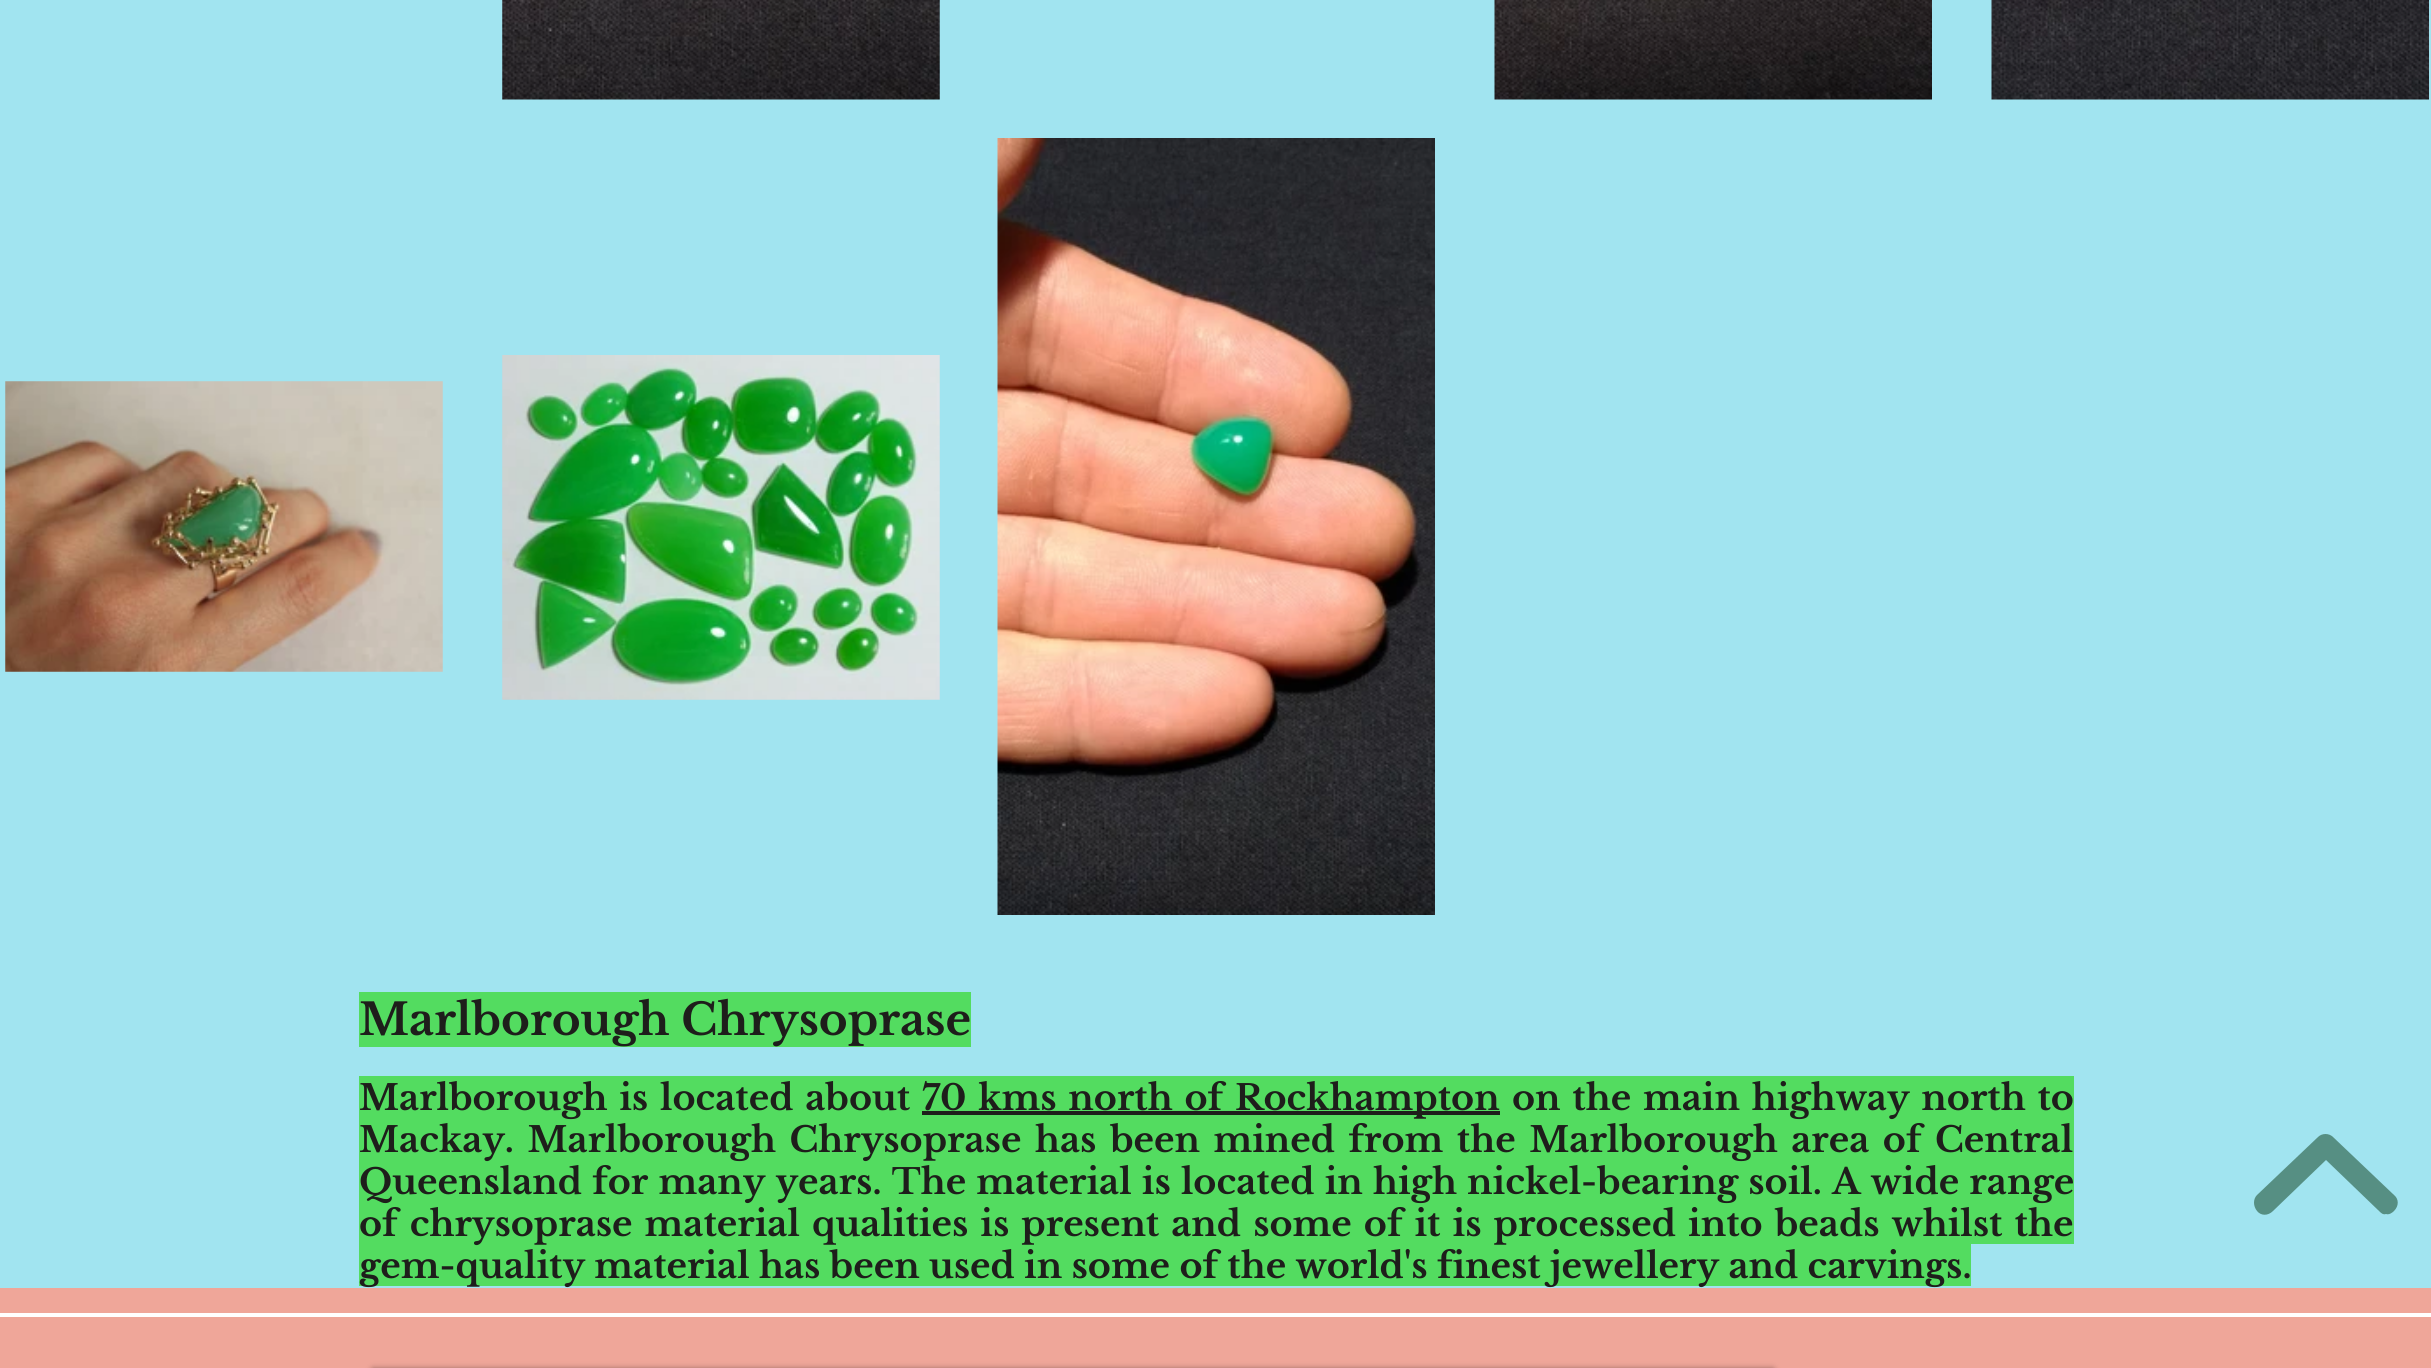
import math
import cairocffi as cairo

surface = cairo.ImageSurface(cairo.FORMAT_RGB24, 2431, 1368)
cr = cairo.Context(surface)
options = cairo.FontOptions()
options.set_hint_metrics(cairo.HINT_METRICS_OFF)
options.set_hint_style(cairo.HINT_STYLE_NONE)
cr.set_font_options(options)
cr.set_miter_limit(4)


def use_color(code):
    cr.set_source_rgb(*(v / 255 for v in bytes.fromhex(code[-6:])))


def spaced_text(x, y, s, letter, word):
    cr.move_to(x, y)
    for ch in s:
        cr.show_text(ch)
        cr.rel_move_to(letter + word * (ch == ' '), 0)


def round_rect(x, y, w, h, r):
    cr.new_sub_path()
    for i, (u, v) in enumerate([(x + w - r, y + h - r), (x + r, y + h - r), (x + r, y + r), (x + w - r, y + r)]):
        cr.arc(u, v, r, i * math.pi / 2, (i + 1) * math.pi / 2)
    cr.close_path()


def shadow(x, y, w, h, r, blur, alpha):
    cr.push_group_with_content(cairo.CONTENT_ALPHA)
    cr.set_operator(cairo.OPERATOR_SOURCE)
    for i in range(15, -16, -2):
        e = blur * i / 6
        if min(w, h) + 2 * e > 0:
            cr.set_source_rgba(0, 0, 0, alpha * math.erfc((i - 1) / 8.5) / 2)
            round_rect(x - e, y - e, w + 2 * e, h + 2 * e, max(0, min(r + e + blur * .6, min(w, h) / 2 + e)))
            cr.fill()
    cr.mask(cr.pop_group())


def picture(path, x, y, w, h):
    cr.save()
    cr.set_source_surface(cairo.ImageSurface.create_from_png(path), x, y)
    cr.rectangle(x, y, w, h)
    cr.fill()
    cr.restore()


use_color("#a1e4f0")
cr.paint()
picture("img1.png", 502, 0, 438, 100)
picture("img2.png", 1494, 0, 438, 100)
picture("img3.png", 1991, 0, 438, 100)
picture("img4.png", 5, 381, 438, 291)
picture("img5.png", 502, 355, 438, 345)
picture("img6.png", 997, 138, 438, 777)
use_color("#53dc60")
cr.rectangle(359, 992, 612, 55)
cr.fill()
cr.select_font_face("Libre Baskerville", cairo.FONT_SLANT_NORMAL, cairo.FONT_WEIGHT_BOLD)
cr.set_font_size(43.75)
use_color("#1e1e1b")
cr.move_to(359, 1035)
cr.show_text("Marlborough Chrysoprase")
use_color("#53dc60")
cr.rectangle(359, 1076, 1715, 168)
cr.fill()
cr.set_font_size(35)
use_color("#1e1e1b")
spaced_text(359, 1110, "Marlborough is located about", 0, 2.5)
cr.rectangle(922, 1111, 578, 4)
cr.fill()
spaced_text(922, 1110, "70 kms north of Rockhampton", 0, 2.5)
spaced_text(1512, 1110, "on the main highway north to", 0, 2.5)
spaced_text(359, 1152, "Mackay. Marlborough Chrysoprase has been mined from the Marlborough area of Central", 0, 4.25)
spaced_text(359, 1194, "Queensland for many years. The material is located in high nickel-bearing soil. A wide range", 0, 0.9)
use_color("#53dc60")
cr.rectangle(359, 1244, 1612, 42)
cr.fill()
use_color("#1e1e1b")
spaced_text(359, 1236, "of chrysoprase material qualities is present and some of it is processed into beads whilst the", 0, 2.75)
cr.move_to(359, 1278)
cr.show_text("gem-quality material has been used in some of the world's finest jewellery and carvings.")
use_color("#568f83")
cr.new_path()
cr.move_to(2386, 1214)
cr.curve_to(2383, 1215, 2381, 1213, 2379, 1211)
cr.line_to(2326, 1160)
cr.line_to(2273, 1211)
cr.curve_to(2268, 1216, 2261, 1216, 2257, 1211)
cr.curve_to(2253, 1206, 2253, 1199, 2257, 1195)
cr.line_to(2318, 1137)
cr.curve_to(2322, 1133, 2329, 1133, 2333, 1137)
cr.line_to(2394, 1195)
cr.curve_to(2399, 1199, 2399, 1206, 2394, 1211)
cr.curve_to(2392, 1213, 2389, 1215, 2386, 1214)
cr.close_path()
cr.fill()
use_color("#efa699")
cr.rectangle(0, 1288, 2431, 80)
cr.fill()
use_color("#ffffff")
cr.rectangle(0, 1313, 2431, 4)
cr.fill()
use_color("#000000")
shadow(373, 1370, 1400, 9, 0, 3.5, 0.6)
surface.write_to_png("result.png")
